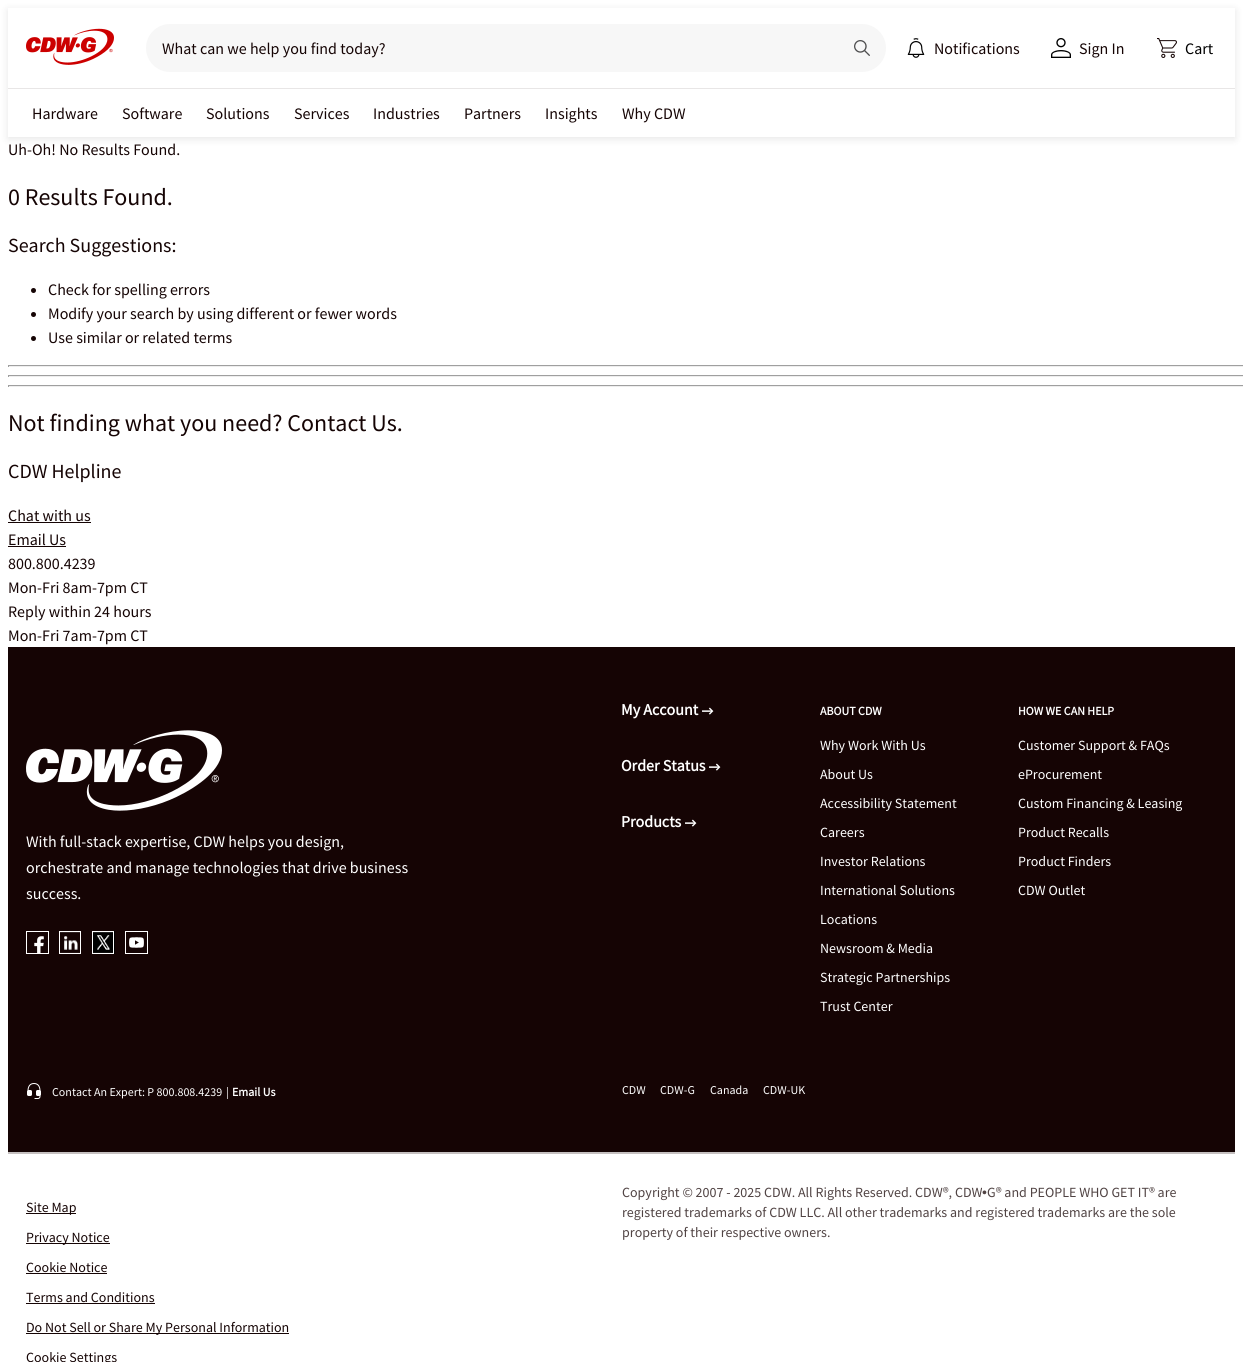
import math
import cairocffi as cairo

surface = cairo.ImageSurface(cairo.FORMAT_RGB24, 1243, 1362)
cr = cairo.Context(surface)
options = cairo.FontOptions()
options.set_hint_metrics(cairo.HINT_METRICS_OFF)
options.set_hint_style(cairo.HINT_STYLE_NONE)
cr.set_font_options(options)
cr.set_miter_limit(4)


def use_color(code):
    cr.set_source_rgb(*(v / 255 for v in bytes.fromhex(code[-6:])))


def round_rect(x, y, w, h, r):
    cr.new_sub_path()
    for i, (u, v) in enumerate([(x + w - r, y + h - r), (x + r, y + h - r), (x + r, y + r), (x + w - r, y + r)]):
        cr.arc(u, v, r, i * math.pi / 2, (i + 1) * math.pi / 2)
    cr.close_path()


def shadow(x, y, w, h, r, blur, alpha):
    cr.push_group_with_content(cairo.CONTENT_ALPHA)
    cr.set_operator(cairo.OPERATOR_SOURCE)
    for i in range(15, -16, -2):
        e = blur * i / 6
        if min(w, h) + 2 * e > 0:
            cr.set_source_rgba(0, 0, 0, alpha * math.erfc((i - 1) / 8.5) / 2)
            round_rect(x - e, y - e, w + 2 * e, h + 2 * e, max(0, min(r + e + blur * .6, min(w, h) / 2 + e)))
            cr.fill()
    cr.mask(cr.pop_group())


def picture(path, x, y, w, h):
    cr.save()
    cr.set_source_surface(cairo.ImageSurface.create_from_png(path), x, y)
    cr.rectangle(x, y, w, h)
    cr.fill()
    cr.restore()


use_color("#ffffff")
cr.paint()
cr.save()
cr.set_fill_rule(cairo.FILL_RULE_EVEN_ODD)
cr.new_path()
cr.move_to(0, 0)
cr.line_to(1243, 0)
cr.line_to(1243, 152)
cr.line_to(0, 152)
cr.close_path()
cr.move_to(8, 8)
cr.line_to(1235, 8)
cr.line_to(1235, 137)
cr.line_to(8, 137)
cr.close_path()
cr.clip()
use_color("#000000")
shadow(8, 10, 1227, 129, 0, 4, 0.1)
cr.restore()
picture("img1.png", 26, 28, 88, 37)
use_color("#f7f7f7")
round_rect(146, 24, 740, 48, 24)
cr.fill()
cr.select_font_face("Source Sans Pro")
cr.set_font_size(16)
use_color("#150404")
cr.move_to(162, 54)
cr.show_text("What can we help you find today?")
picture("img2.png", 854, 40, 16, 16)
picture("img3.png", 907, 38, 18, 20)
cr.move_to(934, 54)
cr.show_text("Notifications")
picture("img4.png", 1051, 38, 20, 20)
cr.move_to(1079, 54)
cr.show_text("Sign In")
picture("img5.png", 1157, 38, 20, 20)
use_color("#000000")
cr.move_to(1185, 54)
cr.show_text("Cart")
use_color("#e8e6e6")
cr.rectangle(8, 88, 1227, 1)
cr.fill()
use_color("#150404")
cr.move_to(32, 119)
cr.show_text("Hardware")
cr.move_to(122, 119)
cr.show_text("Software")
cr.move_to(206, 119)
cr.show_text("Solutions")
cr.move_to(294, 119)
cr.show_text("Services")
cr.move_to(373, 119)
cr.show_text("Industries")
cr.move_to(464, 119)
cr.show_text("Partners")
cr.move_to(545, 119)
cr.show_text("Insights")
cr.move_to(622, 119)
cr.show_text("Why CDW")
cr.move_to(8, 155)
cr.show_text("Uh-Oh! No Results Found.")
cr.set_font_size(24)
cr.move_to(8, 205)
cr.show_text("0 Results Found.")
cr.set_font_size(20)
cr.move_to(8, 252)
cr.show_text("Search Suggestions:")
cr.new_path()
cr.arc(33.5, 290.5, 2.5, 0, 2 * math.pi)
cr.fill()
cr.set_font_size(16)
cr.move_to(48, 295)
cr.show_text("Check for spelling errors")
cr.new_path()
cr.arc(33.5, 314.5, 2.5, 0, 2 * math.pi)
cr.fill()
cr.move_to(48, 319)
cr.show_text("Modify your search by using different or fewer words")
cr.new_path()
cr.arc(33.5, 338.5, 2.5, 0, 2 * math.pi)
cr.fill()
cr.move_to(48, 343)
cr.show_text("Use similar or related terms")
use_color("#9f9f9f")
cr.rectangle(8, 365, 1235, 1)
cr.fill()
use_color("#eeeeee")
cr.rectangle(8, 366, 1235, 1)
cr.fill()
use_color("#9f9f9f")
cr.rectangle(8, 365, 1, 2)
cr.fill()
cr.rectangle(8, 375, 1235, 1)
cr.fill()
use_color("#eeeeee")
cr.rectangle(8, 376, 1235, 1)
cr.fill()
use_color("#9f9f9f")
cr.rectangle(8, 375, 1, 2)
cr.fill()
cr.rectangle(8, 385, 1235, 1)
cr.fill()
use_color("#eeeeee")
cr.rectangle(8, 386, 1235, 1)
cr.fill()
use_color("#9f9f9f")
cr.rectangle(8, 385, 1, 2)
cr.fill()
cr.set_font_size(24)
use_color("#150404")
cr.move_to(8, 431)
cr.show_text("Not finding what you need? Contact Us.")
cr.set_font_size(20)
cr.move_to(8, 478)
cr.show_text("CDW Helpline")
cr.set_font_size(16)
cr.move_to(8, 521)
cr.show_text("Chat with us")
cr.rectangle(8, 522, 83, 1)
cr.fill()
cr.move_to(8, 545)
cr.show_text("Email Us")
cr.rectangle(8, 546, 58, 1)
cr.fill()
cr.move_to(8, 569)
cr.show_text("800.800.4239")
cr.move_to(8, 593)
cr.show_text("Mon-Fri 8am-7pm CT")
cr.move_to(8, 617)
cr.show_text("Reply within 24 hours")
cr.move_to(8, 641)
cr.show_text("Mon-Fri 7am-7pm CT")
cr.rectangle(8, 647, 1227, 505)
cr.fill()
picture("img6.png", 26, 730, 196, 81)
use_color("#ffffff")
cr.move_to(26, 847)
cr.show_text("With full-stack expertise, CDW helps you design,")
cr.move_to(26, 873)
cr.show_text("orchestrate and manage technologies that drive business")
cr.move_to(26, 899)
cr.show_text("success.")
picture("img7.png", 26, 931, 23, 23)
picture("img8.png", 59, 931, 22, 23)
picture("img9.png", 92, 931, 23, 23)
picture("img10.png", 125, 931, 23, 23)
cr.select_font_face("Source Sans Pro", cairo.FONT_SLANT_NORMAL, cairo.FONT_WEIGHT_BOLD)
cr.move_to(621, 715)
cr.show_text("My Account")
picture("img11.png", 702, 707, 12, 8)
cr.move_to(621, 771)
cr.show_text("Order Status")
picture("img11.png", 709, 763, 12, 8)
cr.move_to(621, 827)
cr.show_text("Products")
picture("img11.png", 685, 819, 12, 8)
cr.set_font_size(12)
cr.move_to(820, 715)
cr.show_text("ABOUT CDW")
cr.select_font_face("Source Sans Pro")
cr.set_font_size(14)
cr.move_to(820, 750)
cr.show_text("Why Work With Us")
cr.move_to(820, 779)
cr.show_text("About Us")
cr.move_to(820, 808)
cr.show_text("Accessibility Statement")
cr.move_to(820, 837)
cr.show_text("Careers")
cr.move_to(820, 866)
cr.show_text("Investor Relations")
cr.move_to(820, 895)
cr.show_text("International Solutions")
cr.move_to(820, 924)
cr.show_text("Locations")
cr.move_to(820, 953)
cr.show_text("Newsroom & Media")
cr.move_to(820, 982)
cr.show_text("Strategic Partnerships")
cr.move_to(820, 1011)
cr.show_text("Trust Center")
cr.select_font_face("Source Sans Pro", cairo.FONT_SLANT_NORMAL, cairo.FONT_WEIGHT_BOLD)
cr.set_font_size(12)
cr.move_to(1018, 715)
cr.show_text("HOW WE CAN HELP")
cr.select_font_face("Source Sans Pro")
cr.set_font_size(14)
cr.move_to(1018, 750)
cr.show_text("Customer Support & FAQs")
cr.move_to(1018, 779)
cr.show_text("eProcurement")
cr.move_to(1018, 808)
cr.show_text("Custom Financing & Leasing")
cr.move_to(1018, 837)
cr.show_text("Product Recalls")
cr.move_to(1018, 866)
cr.show_text("Product Finders")
cr.move_to(1018, 895)
cr.show_text("CDW Outlet")
picture("img12.png", 27, 1083, 14, 16)
cr.set_font_size(12)
cr.move_to(52, 1096)
cr.show_text("Contact An Expert: P 800.808.4239")
cr.move_to(226, 1096)
cr.show_text("|")
cr.select_font_face("Source Sans Pro", cairo.FONT_SLANT_NORMAL, cairo.FONT_WEIGHT_BOLD)
cr.move_to(232, 1096)
cr.show_text("Email Us")
cr.select_font_face("Source Sans Pro")
cr.move_to(622, 1094)
cr.show_text("CDW")
cr.move_to(660, 1094)
cr.show_text("CDW-G")
cr.move_to(710, 1094)
cr.show_text("Canada")
cr.move_to(763, 1094)
cr.show_text("CDW-UK")
use_color("#c5c0c0")
cr.rectangle(8, 1152, 1227, 2)
cr.fill()
use_color("#150404")
cr.rectangle(26, 1213, 50, 1)
cr.fill()
cr.set_font_size(14)
cr.move_to(26, 1212)
cr.show_text("Site Map")
cr.rectangle(26, 1243, 84, 1)
cr.fill()
cr.move_to(26, 1242)
cr.show_text("Privacy Notice")
cr.move_to(26, 1272)
cr.show_text("Cookie Notice")
cr.rectangle(26, 1273, 81, 1)
cr.fill()
cr.move_to(26, 1302)
cr.show_text("Terms and Conditions")
cr.rectangle(26, 1303, 129, 1)
cr.fill()
use_color("#504343")
cr.move_to(622, 1197)
cr.show_text("Copyright © 2007 - 2025 CDW. All Rights Reserved. CDW®, CDW")
cr.select_font_face("Liberation Sans")
cr.move_to(982, 1197)
cr.show_text("•")
cr.select_font_face("Source Sans Pro")
cr.move_to(987, 1197)
cr.show_text("G® and PEOPLE WHO GET IT® are")
cr.move_to(622, 1217)
cr.show_text("registered trademarks of CDW LLC. All other trademarks and registered trademarks are the sole")
cr.move_to(622, 1237)
cr.show_text("property of their respective owners.")
use_color("#150404")
cr.rectangle(26, 1333, 263, 1)
cr.fill()
cr.move_to(26, 1332)
cr.show_text("Do Not Sell or Share My Personal Information")
cr.move_to(26, 1362)
cr.show_text("Cookie Settings")
surface.write_to_png("result.png")
